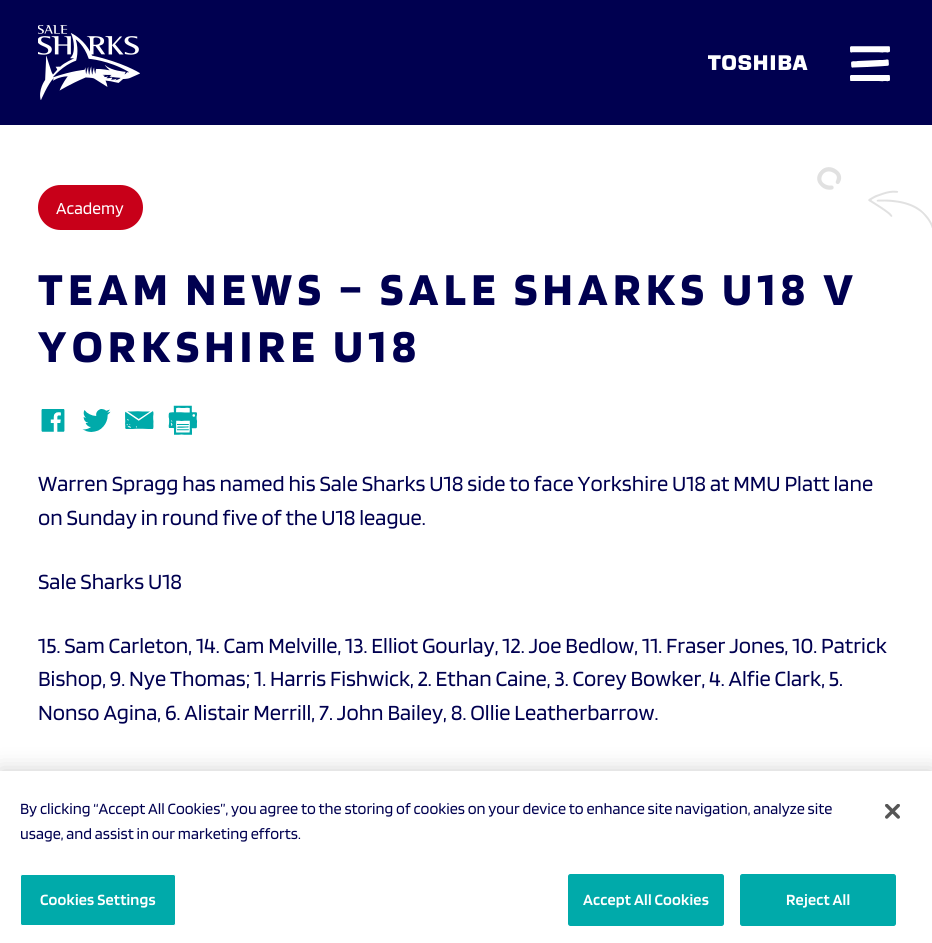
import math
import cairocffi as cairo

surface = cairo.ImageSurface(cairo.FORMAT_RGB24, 932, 943)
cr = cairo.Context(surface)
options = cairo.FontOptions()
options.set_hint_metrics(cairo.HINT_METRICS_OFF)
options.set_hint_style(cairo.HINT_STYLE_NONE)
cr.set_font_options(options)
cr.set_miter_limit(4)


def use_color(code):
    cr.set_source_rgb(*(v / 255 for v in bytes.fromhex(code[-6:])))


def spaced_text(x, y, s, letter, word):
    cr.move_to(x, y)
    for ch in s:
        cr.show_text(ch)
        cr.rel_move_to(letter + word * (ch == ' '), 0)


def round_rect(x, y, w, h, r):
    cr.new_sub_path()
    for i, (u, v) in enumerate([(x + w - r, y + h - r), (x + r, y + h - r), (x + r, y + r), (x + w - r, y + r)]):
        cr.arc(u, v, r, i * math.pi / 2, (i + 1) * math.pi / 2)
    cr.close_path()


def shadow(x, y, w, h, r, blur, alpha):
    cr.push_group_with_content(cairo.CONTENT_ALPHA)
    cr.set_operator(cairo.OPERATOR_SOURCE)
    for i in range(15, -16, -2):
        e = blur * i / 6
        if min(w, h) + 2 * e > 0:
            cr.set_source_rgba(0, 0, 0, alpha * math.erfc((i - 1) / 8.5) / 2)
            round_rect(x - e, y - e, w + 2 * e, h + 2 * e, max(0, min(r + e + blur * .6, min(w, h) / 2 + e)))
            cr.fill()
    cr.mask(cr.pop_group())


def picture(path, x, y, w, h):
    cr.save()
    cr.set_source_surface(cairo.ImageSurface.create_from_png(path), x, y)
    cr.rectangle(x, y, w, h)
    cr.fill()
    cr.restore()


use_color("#ffffff")
cr.paint()
use_color("#000050")
cr.rectangle(0, 0, 932, 125)
cr.fill()
picture("img1.png", 38, 25, 102, 75)
picture("img2.png", 708, 55, 100, 15)
picture("img3.png", 850, 46, 40, 36)
use_color("#c80019")
round_rect(38, 185, 105, 45, 22.5)
cr.fill()
cr.select_font_face("Blinker")
cr.set_font_size(17.5)
use_color("#ffffff")
cr.move_to(56, 214)
cr.show_text("Academy")
picture("img4.png", 817, 167, 115, 61)
cr.select_font_face("Blinker", cairo.FONT_SLANT_NORMAL, cairo.FONT_WEIGHT_BOLD)
cr.set_font_size(47.5)
use_color("#000050")
spaced_text(38, 305, "TEAM NEWS – SALE SHARKS U18 V", 5.7, 0)
spaced_text(38, 362, "YORKSHIRE U18", 5.7, 0)
picture("img5.png", 41, 409, 24, 23)
picture("img6.png", 82, 409, 29, 23)
picture("img7.png", 125, 411, 29, 18)
picture("img8.png", 168, 405, 30, 30)
cr.select_font_face("Blinker")
cr.set_font_size(22.5)
cr.move_to(38, 491)
cr.show_text("Warren Spragg has named his Sale Sharks U18 side to face Yorkshire U18 at MMU Platt lane")
cr.move_to(38, 525)
cr.show_text("on Sunday in round five of the U18 league.")
cr.move_to(38, 589)
cr.show_text("Sale Sharks U18")
cr.move_to(38, 653)
cr.show_text("15. Sam Carleton, 14. Cam Melville, 13. Elliot Gourlay, 12. Joe Bedlow, 11. Fraser Jones, 10. Patrick")
cr.move_to(38, 686)
cr.show_text("Bishop, 9. Nye Thomas; 1. Harris Fishwick, 2. Ethan Caine, 3. Corey Bowker, 4. Alfie Clark, 5.")
cr.move_to(38, 720)
cr.show_text("Nonso Agina, 6. Alistair Merrill, 7. John Bailey, 8. Ollie Leatherbarrow.")
use_color("#000000")
shadow(0, 771, 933, 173, 0, 11, 0.2)
use_color("#ffffff")
cr.rectangle(0, 771, 932, 172)
cr.fill()
cr.set_font_size(16.25)
use_color("#000050")
cr.move_to(20, 814)
cr.show_text("By clicking “Accept All Cookies”, you agree to the storing of cookies on your device to enhance site navigation, analyze site")
cr.move_to(20, 839)
cr.show_text("usage, and assist in our marketing efforts.")
use_color("#00aaaa")
round_rect(20.5, 874.5, 155, 51, 2)
cr.fill_preserve()
use_color("#ffffff")
cr.set_line_width(1)
cr.stroke()
cr.select_font_face("Blinker SemiBold")
spaced_text(40, 905, "Cookies Settings", 0.2, 0)
use_color("#00aaaa")
round_rect(568.5, 874.5, 155, 51, 2)
cr.fill_preserve()
cr.stroke()
use_color("#ffffff")
spaced_text(583, 905, "Accept All Cookies", 0.2, 0)
use_color("#00aaaa")
round_rect(740.5, 874.5, 155, 51, 2)
cr.fill_preserve()
cr.stroke()
use_color("#ffffff")
spaced_text(786, 905, "Reject All", 0.2, 0)
picture("img9.png", 885, 804, 15, 15)
surface.write_to_png("result.png")
